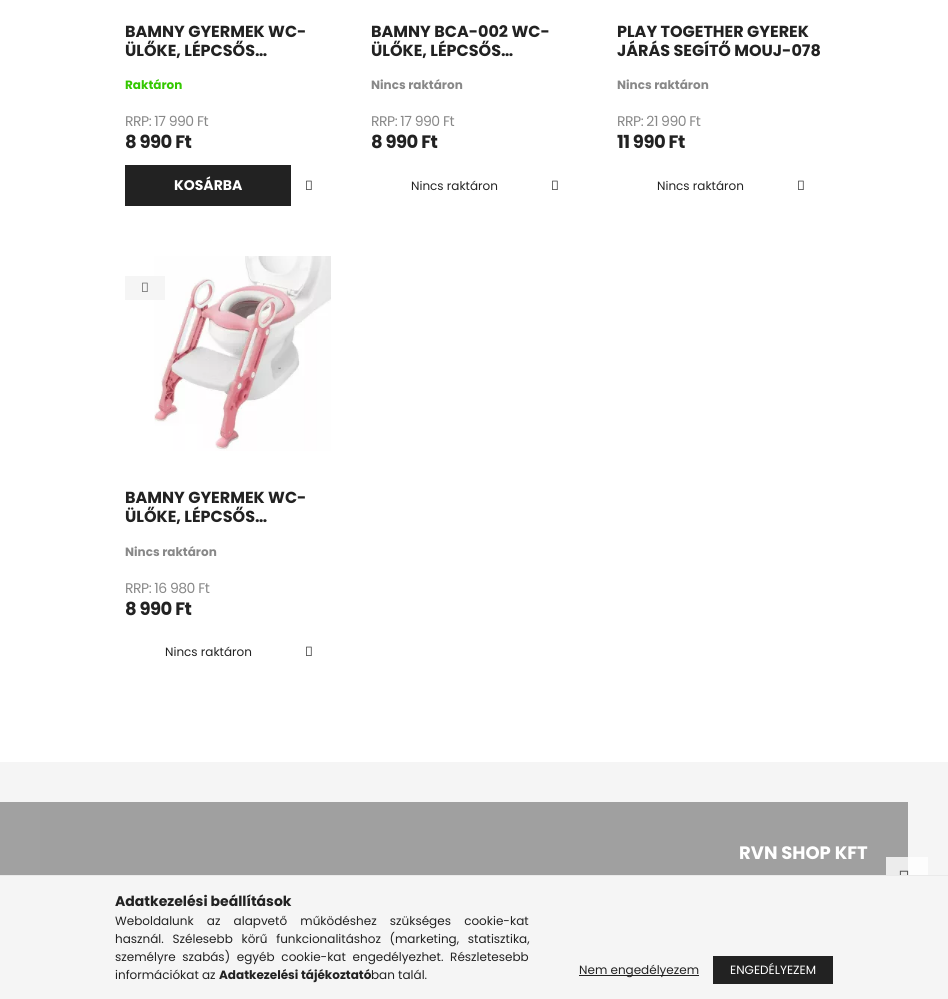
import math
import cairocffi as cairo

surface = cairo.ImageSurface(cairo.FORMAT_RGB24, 948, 999)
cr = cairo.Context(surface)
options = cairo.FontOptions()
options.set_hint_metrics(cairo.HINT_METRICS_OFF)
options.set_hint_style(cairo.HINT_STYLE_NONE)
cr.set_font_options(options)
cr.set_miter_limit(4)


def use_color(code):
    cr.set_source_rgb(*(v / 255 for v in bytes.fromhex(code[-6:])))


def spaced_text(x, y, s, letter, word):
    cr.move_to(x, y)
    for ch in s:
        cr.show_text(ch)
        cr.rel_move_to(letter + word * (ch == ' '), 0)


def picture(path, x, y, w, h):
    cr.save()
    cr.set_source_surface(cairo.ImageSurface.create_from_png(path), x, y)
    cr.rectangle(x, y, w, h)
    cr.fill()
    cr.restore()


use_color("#ffffff")
cr.paint()
cr.select_font_face("Poppins", cairo.FONT_SLANT_NORMAL, cairo.FONT_WEIGHT_BOLD)
cr.set_font_size(16)
use_color("#222222")
cr.move_to(125, 37)
cr.show_text("BAMNY GYERMEK WC-")
cr.move_to(125, 56)
cr.show_text("ÜLŐKE, LÉPCSŐS…")
cr.set_font_size(12)
use_color("#34c800")
cr.move_to(125, 89)
cr.show_text("Raktáron")
cr.select_font_face("Poppins")
cr.set_font_size(14)
use_color("#888888")
spaced_text(125, 126, "RRP: 17 990 Ft", -0.5, 0)
cr.select_font_face("Poppins", cairo.FONT_SLANT_NORMAL, cairo.FONT_WEIGHT_BOLD)
cr.set_font_size(18)
use_color("#222222")
spaced_text(125, 148, "8 990 Ft", -0.5, 0)
gradient = cairo.LinearGradient(-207, 186, 291, 185)
gradient.add_color_stop_rgba(0, 0.333, 0.333, 0.333, 1)
gradient.add_color_stop_rgba(0.33, 0.067, 0.067, 0.067, 1)
gradient.add_color_stop_rgba(0.67, 0.133, 0.133, 0.133, 1)
gradient.add_color_stop_rgba(1, 0.133, 0.133, 0.133, 1)
cr.set_source(gradient)
cr.rectangle(125, 165, 166, 41)
cr.fill()
cr.set_font_size(14)
use_color("#ffffff")
cr.move_to(174, 190)
cr.show_text("KOSÁRBA")
picture("img1.png", 306, 180, 6, 10)
cr.set_font_size(16)
use_color("#222222")
cr.move_to(371, 37)
cr.show_text("BAMNY BCA-002 WC-")
cr.move_to(371, 56)
cr.show_text("ÜLŐKE, LÉPCSŐS…")
cr.set_font_size(12)
use_color("#888888")
cr.move_to(371, 89)
cr.show_text("Nincs raktáron")
cr.select_font_face("Poppins")
cr.set_font_size(14)
spaced_text(371, 126, "RRP: 17 990 Ft", -0.5, 0)
cr.select_font_face("Poppins", cairo.FONT_SLANT_NORMAL, cairo.FONT_WEIGHT_BOLD)
cr.set_font_size(18)
use_color("#222222")
spaced_text(371, 148, "8 990 Ft", -0.5, 0)
cr.select_font_face("Poppins")
cr.set_font_size(12)
cr.move_to(411, 190)
cr.show_text("Nincs raktáron")
picture("img1.png", 552, 180, 6, 10)
cr.select_font_face("Poppins", cairo.FONT_SLANT_NORMAL, cairo.FONT_WEIGHT_BOLD)
cr.set_font_size(16)
cr.move_to(617, 37)
cr.show_text("PLAY TOGETHER GYEREK")
cr.move_to(617, 56)
cr.show_text("JÁRÁS SEGÍTŐ MOUJ-078")
cr.set_font_size(12)
use_color("#888888")
cr.move_to(617, 89)
cr.show_text("Nincs raktáron")
cr.select_font_face("Poppins")
cr.set_font_size(14)
spaced_text(617, 126, "RRP: 21 990 Ft", -0.5, 0)
cr.select_font_face("Poppins", cairo.FONT_SLANT_NORMAL, cairo.FONT_WEIGHT_BOLD)
cr.set_font_size(18)
use_color("#222222")
spaced_text(617, 148, "11 990 Ft", -0.5, 0)
cr.select_font_face("Poppins")
cr.set_font_size(12)
cr.move_to(657, 190)
cr.show_text("Nincs raktáron")
picture("img1.png", 798, 180, 6, 10)
picture("img3.png", 154, 256, 177, 195)
use_color("#f5f5f5")
cr.rectangle(125, 276, 40, 24)
cr.fill()
picture("img2.png", 142, 282, 6, 10)
cr.select_font_face("Poppins", cairo.FONT_SLANT_NORMAL, cairo.FONT_WEIGHT_BOLD)
cr.set_font_size(16)
use_color("#222222")
cr.move_to(125, 503)
cr.show_text("BAMNY GYERMEK WC-")
cr.move_to(125, 522)
cr.show_text("ÜLŐKE, LÉPCSŐS…")
cr.set_font_size(12)
use_color("#888888")
cr.move_to(125, 556)
cr.show_text("Nincs raktáron")
cr.select_font_face("Poppins")
cr.set_font_size(14)
spaced_text(125, 593, "RRP: 16 980 Ft", -0.5, 0)
cr.select_font_face("Poppins", cairo.FONT_SLANT_NORMAL, cairo.FONT_WEIGHT_BOLD)
cr.set_font_size(18)
use_color("#222222")
spaced_text(125, 615, "8 990 Ft", -0.5, 0)
cr.select_font_face("Poppins")
cr.set_font_size(12)
cr.move_to(165, 656)
cr.show_text("Nincs raktáron")
picture("img1.png", 306, 646, 6, 10)
use_color("#f5f5f5")
cr.rectangle(0, 762, 948, 113)
cr.fill()
use_color("#fdfdfd")
cr.rectangle(908, 857, 20, 18)
cr.fill()
use_color("#a0a0a0")
cr.rectangle(40, 802, 868, 73)
cr.fill()
use_color("#ececec")
cr.rectangle(886, 857, 22, 18)
cr.fill()
use_color("#a1a1a1")
cr.rectangle(0, 802, 40, 73)
cr.fill()
cr.select_font_face("Poppins", cairo.FONT_SLANT_NORMAL, cairo.FONT_WEIGHT_BOLD)
cr.set_font_size(18)
use_color("#ffffff")
cr.move_to(739, 859)
cr.show_text("RVN SHOP KFT")
picture("img4.png", 899, 870, 10, 5)
use_color("#f5f5f5")
cr.rectangle(0, 876, 948, 123)
cr.fill()
use_color("#eaeaea")
cr.rectangle(0, 875, 948, 1)
cr.fill()
cr.set_font_size(14)
use_color("#222222")
cr.move_to(115, 906)
cr.show_text("Adatkezelési beállítások")
cr.select_font_face("Poppins")
cr.set_font_size(12)
spaced_text(115, 925, "Weboldalunk az alapvető működéshez szükséges cookie-kat", 0, 10)
spaced_text(115, 943, "használ. Szélesebb körű funkcionalitáshoz (marketing, statisztika,", 0, 5.5)
spaced_text(115, 961, "személyre szabás) egyéb cookie-kat engedélyezhet. Részletesebb", 0, 3.5)
cr.move_to(115, 979)
cr.show_text("információkat az")
cr.select_font_face("Poppins", cairo.FONT_SLANT_NORMAL, cairo.FONT_WEIGHT_BOLD)
cr.move_to(219, 979)
cr.show_text("Adatkezelési tájékoztató")
cr.select_font_face("Poppins")
cr.move_to(371, 979)
cr.show_text("ban talál.")
cr.rectangle(579, 975, 120, 1)
cr.fill()
cr.move_to(579, 974)
cr.show_text("Nem engedélyezem")
gradient = cairo.LinearGradient(473, 970, 833, 970)
gradient.add_color_stop_rgba(0, 0.333, 0.333, 0.333, 1)
gradient.add_color_stop_rgba(0.33, 0.067, 0.067, 0.067, 1)
gradient.add_color_stop_rgba(0.67, 0.133, 0.133, 0.133, 1)
gradient.add_color_stop_rgba(1, 0.133, 0.133, 0.133, 1)
cr.set_source(gradient)
cr.rectangle(713, 956, 120, 28)
cr.fill()
use_color("#ffffff")
cr.move_to(730, 974)
cr.show_text("ENGEDÉLYEZEM")
surface.write_to_png("result.png")
